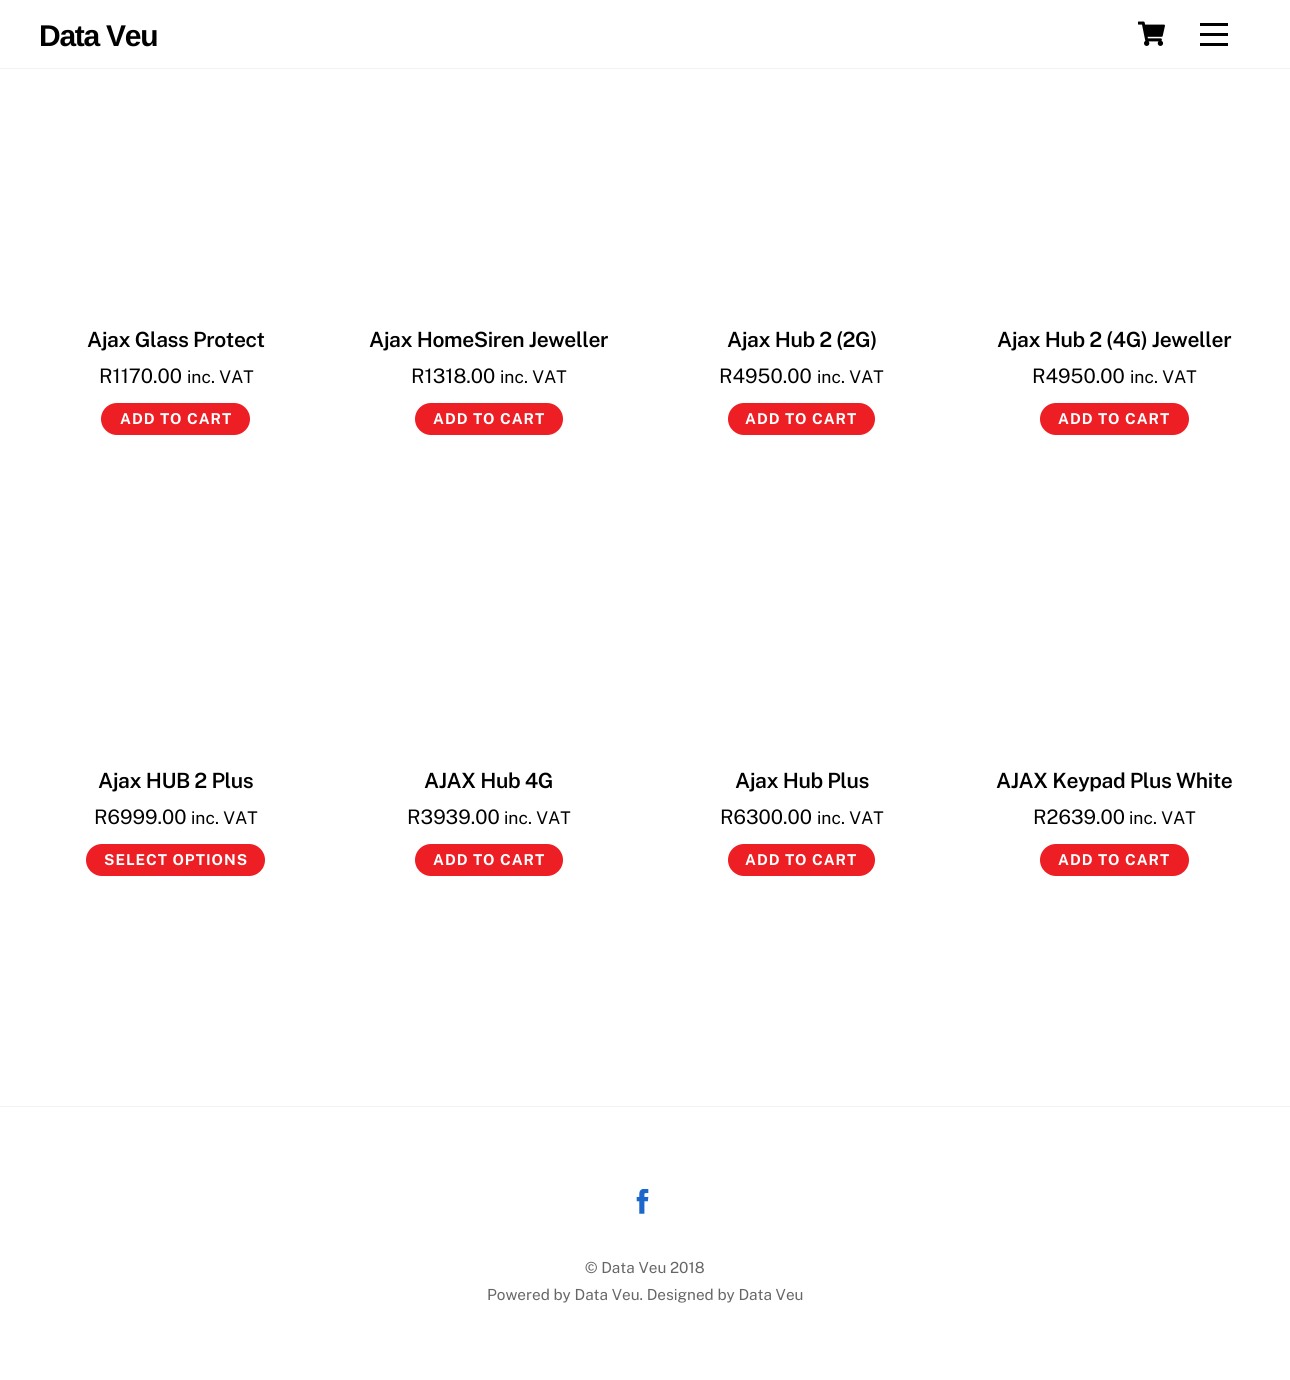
import math
import cairocffi as cairo

surface = cairo.ImageSurface(cairo.FORMAT_RGB24, 1290, 1380)
cr = cairo.Context(surface)
options = cairo.FontOptions()
options.set_hint_metrics(cairo.HINT_METRICS_OFF)
options.set_hint_style(cairo.HINT_STYLE_NONE)
cr.set_font_options(options)
cr.set_miter_limit(4)


def use_color(code):
    cr.set_source_rgb(*(v / 255 for v in bytes.fromhex(code[-6:])))


def spaced_text(x, y, s, letter, word):
    cr.move_to(x, y)
    for ch in s:
        cr.show_text(ch)
        cr.rel_move_to(letter + word * (ch == ' '), 0)


def round_rect(x, y, w, h, r):
    cr.new_sub_path()
    for i, (u, v) in enumerate([(x + w - r, y + h - r), (x + r, y + h - r), (x + r, y + r), (x + w - r, y + r)]):
        cr.arc(u, v, r, i * math.pi / 2, (i + 1) * math.pi / 2)
    cr.close_path()


def picture(path, x, y, w, h):
    cr.save()
    cr.set_source_surface(cairo.ImageSurface.create_from_png(path), x, y)
    cr.rectangle(x, y, w, h)
    cr.fill()
    cr.restore()


use_color("#ffffff")
cr.paint()
use_color("#f2f2f2")
cr.rectangle(0, 68, 1290, 1)
cr.fill()
cr.select_font_face("Liberation Sans", cairo.FONT_SLANT_NORMAL, cairo.FONT_WEIGHT_BOLD)
cr.set_font_size(30)
use_color("#000000")
spaced_text(39, 46, "Data Veu", -1.25, 0)
picture("img1.png", 1138, 21, 27, 25)
cr.rectangle(1200, 43, 28, 3)
cr.fill()
cr.rectangle(1200, 23, 28, 3)
cr.fill()
cr.rectangle(1200, 33, 28, 3)
cr.fill()
cr.select_font_face("Public Sans SemiBold")
cr.set_font_size(21)
spaced_text(87, 347, "Ajax Glass Protect", -0.4, 0)
cr.select_font_face("Public Sans")
cr.set_font_size(20)
cr.move_to(99, 383)
cr.show_text("R1170.00")
cr.set_font_size(17.5)
cr.move_to(187, 383)
cr.show_text("inc. VAT")
use_color("#ed1e24")
round_rect(101, 403, 149, 32, 16)
cr.fill()
cr.select_font_face("Public Sans", cairo.FONT_SLANT_NORMAL, cairo.FONT_WEIGHT_BOLD)
cr.set_font_size(15)
use_color("#ffffff")
spaced_text(120, 424, "ADD TO CART", 1, 0)
cr.select_font_face("Public Sans SemiBold")
cr.set_font_size(21)
use_color("#000000")
spaced_text(369, 347, "Ajax HomeSiren Jeweller", -0.4, 0)
cr.select_font_face("Public Sans")
cr.set_font_size(20)
cr.move_to(411, 383)
cr.show_text("R1318.00")
cr.set_font_size(17.5)
cr.move_to(500, 383)
cr.show_text("inc. VAT")
use_color("#ed1e24")
round_rect(415, 403, 148, 32, 16)
cr.fill()
cr.select_font_face("Public Sans", cairo.FONT_SLANT_NORMAL, cairo.FONT_WEIGHT_BOLD)
cr.set_font_size(15)
use_color("#ffffff")
spaced_text(433, 424, "ADD TO CART", 1, 0)
cr.select_font_face("Public Sans SemiBold")
cr.set_font_size(21)
use_color("#000000")
spaced_text(727, 347, "Ajax Hub 2 (2G)", -0.4, 0)
cr.select_font_face("Public Sans")
cr.set_font_size(20)
cr.move_to(719, 383)
cr.show_text("R4950.00")
cr.set_font_size(17.5)
cr.move_to(817, 383)
cr.show_text("inc. VAT")
use_color("#ed1e24")
round_rect(728, 403, 147, 32, 16)
cr.fill()
cr.select_font_face("Public Sans", cairo.FONT_SLANT_NORMAL, cairo.FONT_WEIGHT_BOLD)
cr.set_font_size(15)
use_color("#ffffff")
spaced_text(745, 424, "ADD TO CART", 1, 0)
cr.select_font_face("Public Sans SemiBold")
cr.set_font_size(21)
use_color("#000000")
spaced_text(997, 347, "Ajax Hub 2 (4G) Jeweller", -0.4, 0)
cr.select_font_face("Public Sans")
cr.set_font_size(20)
cr.move_to(1032, 383)
cr.show_text("R4950.00")
cr.set_font_size(17.5)
cr.move_to(1130, 383)
cr.show_text("inc. VAT")
use_color("#ed1e24")
round_rect(1040, 403, 149, 32, 16)
cr.fill()
cr.select_font_face("Public Sans", cairo.FONT_SLANT_NORMAL, cairo.FONT_WEIGHT_BOLD)
cr.set_font_size(15)
use_color("#ffffff")
spaced_text(1058, 424, "ADD TO CART", 1, 0)
cr.select_font_face("Public Sans SemiBold")
cr.set_font_size(21)
use_color("#000000")
spaced_text(98, 788, "Ajax HUB 2 Plus", -0.4, 0)
cr.select_font_face("Public Sans")
cr.set_font_size(20)
cr.move_to(94, 824)
cr.show_text("R6999.00")
cr.set_font_size(17.5)
cr.move_to(191, 824)
cr.show_text("inc. VAT")
use_color("#ed1e24")
round_rect(86, 844, 179, 32, 16)
cr.fill()
cr.select_font_face("Public Sans", cairo.FONT_SLANT_NORMAL, cairo.FONT_WEIGHT_BOLD)
cr.set_font_size(15)
use_color("#ffffff")
spaced_text(104, 865, "SELECT OPTIONS", 1, 0)
cr.select_font_face("Public Sans SemiBold")
cr.set_font_size(21)
use_color("#000000")
spaced_text(424, 788, "AJAX Hub 4G", -0.4, 0)
cr.select_font_face("Public Sans")
cr.set_font_size(20)
cr.move_to(407, 824)
cr.show_text("R3939.00")
cr.set_font_size(17.5)
cr.move_to(504, 824)
cr.show_text("inc. VAT")
use_color("#ed1e24")
round_rect(415, 844, 148, 32, 16)
cr.fill()
cr.select_font_face("Public Sans", cairo.FONT_SLANT_NORMAL, cairo.FONT_WEIGHT_BOLD)
cr.set_font_size(15)
use_color("#ffffff")
spaced_text(433, 865, "ADD TO CART", 1, 0)
cr.select_font_face("Public Sans SemiBold")
cr.set_font_size(21)
use_color("#000000")
spaced_text(735, 788, "Ajax Hub Plus", -0.4, 0)
cr.select_font_face("Public Sans")
cr.set_font_size(20)
cr.move_to(720, 824)
cr.show_text("R6300.00")
cr.set_font_size(17.5)
cr.move_to(817, 824)
cr.show_text("inc. VAT")
use_color("#ed1e24")
round_rect(728, 844, 147, 32, 16)
cr.fill()
cr.select_font_face("Public Sans", cairo.FONT_SLANT_NORMAL, cairo.FONT_WEIGHT_BOLD)
cr.set_font_size(15)
use_color("#ffffff")
spaced_text(745, 865, "ADD TO CART", 1, 0)
cr.select_font_face("Public Sans SemiBold")
cr.set_font_size(21)
use_color("#000000")
spaced_text(996, 788, "AJAX Keypad Plus White", -0.4, 0)
cr.select_font_face("Public Sans")
cr.set_font_size(20)
cr.move_to(1033, 824)
cr.show_text("R2639.00")
cr.set_font_size(17.5)
cr.move_to(1129, 824)
cr.show_text("inc. VAT")
use_color("#ed1e24")
round_rect(1040, 844, 149, 32, 16)
cr.fill()
cr.select_font_face("Public Sans", cairo.FONT_SLANT_NORMAL, cairo.FONT_WEIGHT_BOLD)
cr.set_font_size(15)
use_color("#ffffff")
spaced_text(1058, 865, "ADD TO CART", 1, 0)
use_color("#f2f2f2")
cr.rectangle(0, 1106, 1290, 1)
cr.fill()
picture("img2.png", 636, 1189, 13, 25)
cr.select_font_face("Public Sans")
cr.set_font_size(15.3)
use_color("#666666")
cr.move_to(585, 1273)
cr.show_text("© Data Veu 2018")
cr.move_to(487, 1300)
cr.show_text("Powered by Data Veu. Designed by Data Veu")
surface.write_to_png("result.png")
